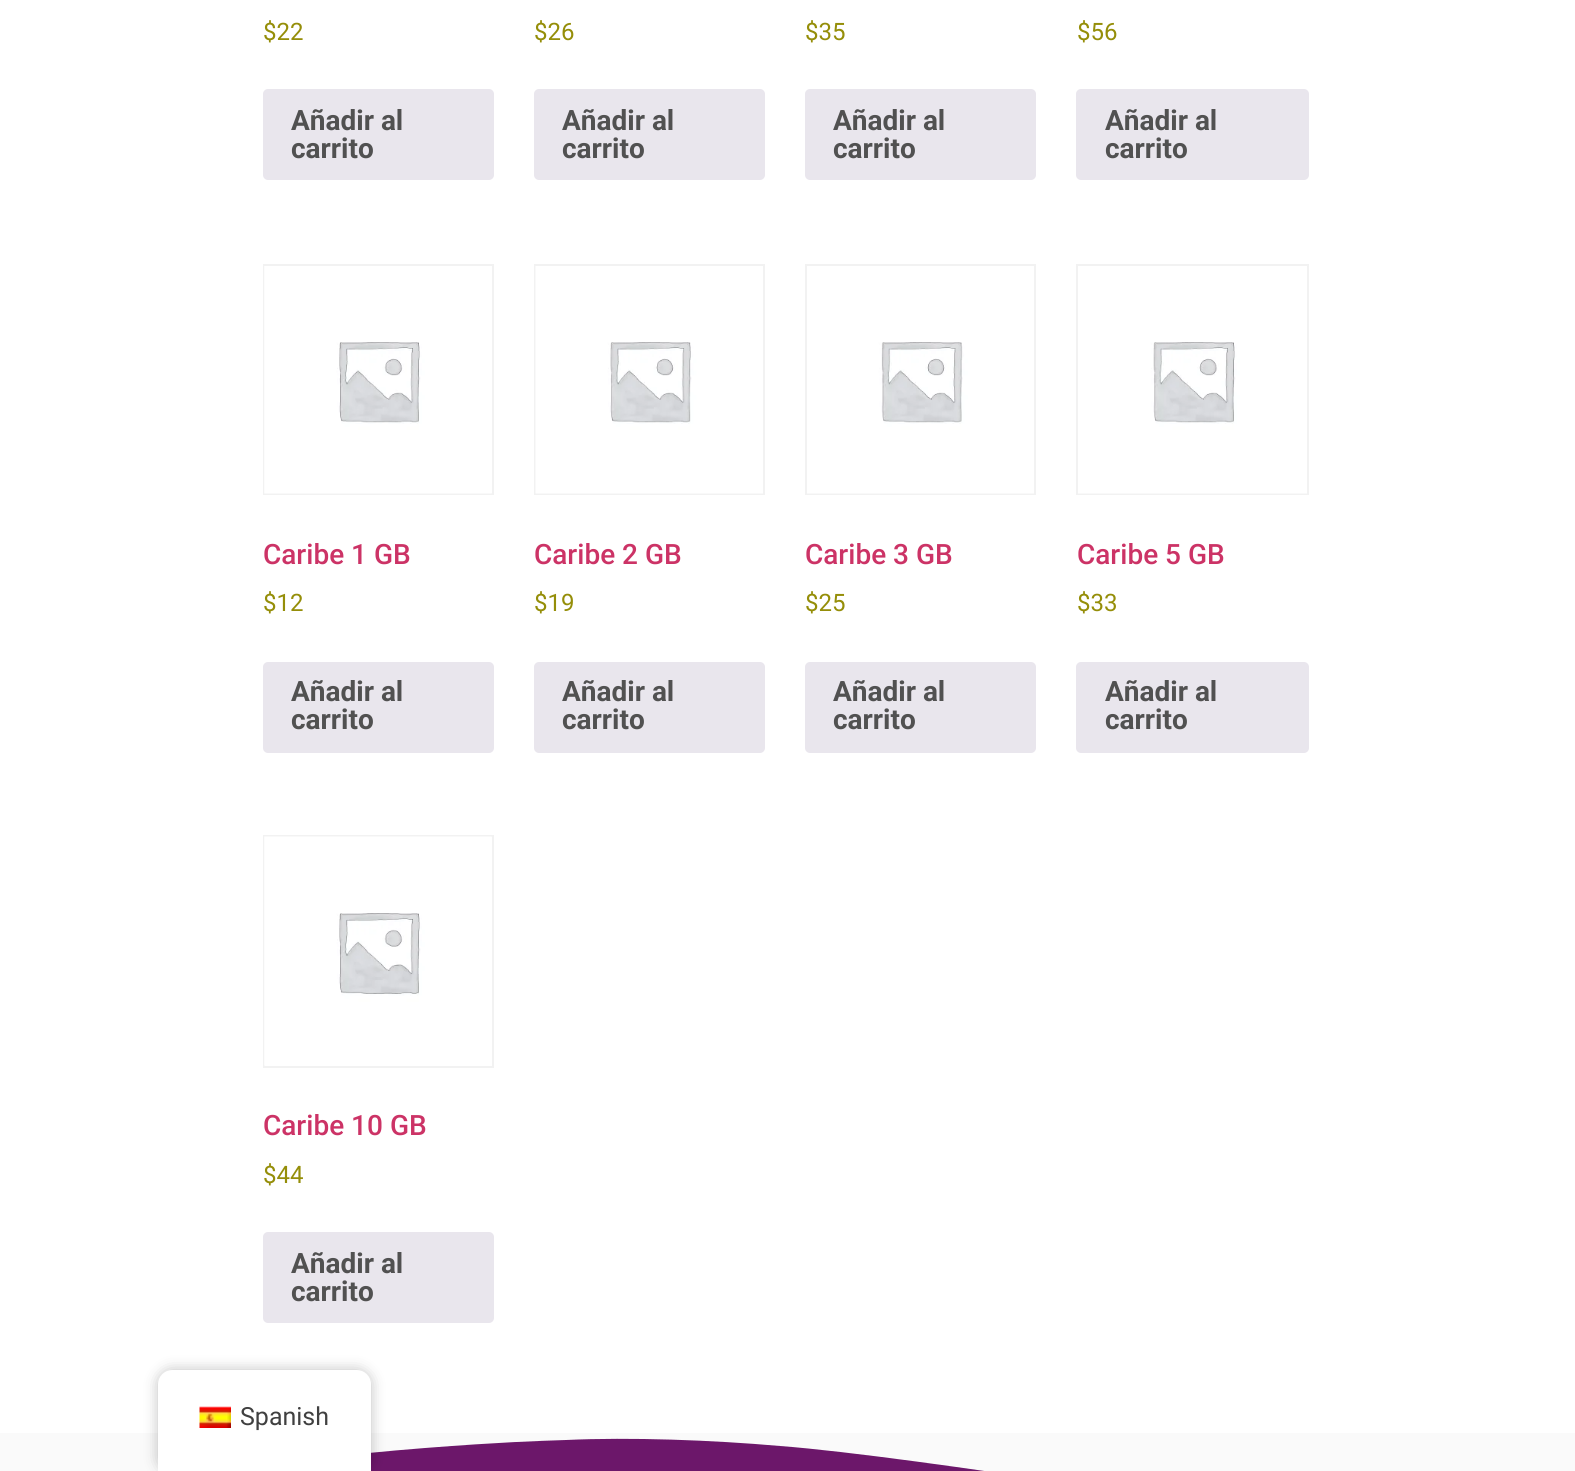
import math
import cairocffi as cairo

surface = cairo.ImageSurface(cairo.FORMAT_RGB24, 1575, 1471)
cr = cairo.Context(surface)
options = cairo.FontOptions()
options.set_hint_metrics(cairo.HINT_METRICS_OFF)
options.set_hint_style(cairo.HINT_STYLE_NONE)
cr.set_font_options(options)
cr.set_miter_limit(4)


def use_color(code):
    cr.set_source_rgb(*(v / 255 for v in bytes.fromhex(code[-6:])))


def round_rect(x, y, w, h, r):
    cr.new_sub_path()
    for i, (u, v) in enumerate([(x + w - r, y + h - r), (x + r, y + h - r), (x + r, y + r), (x + w - r, y + r)]):
        cr.arc(u, v, r, i * math.pi / 2, (i + 1) * math.pi / 2)
    cr.close_path()


def shadow(x, y, w, h, r, blur, alpha):
    cr.push_group_with_content(cairo.CONTENT_ALPHA)
    cr.set_operator(cairo.OPERATOR_SOURCE)
    for i in range(15, -16, -2):
        e = blur * i / 6
        if min(w, h) + 2 * e > 0:
            cr.set_source_rgba(0, 0, 0, alpha * math.erfc((i - 1) / 8.5) / 2)
            round_rect(x - e, y - e, w + 2 * e, h + 2 * e, max(0, min(r + e + blur * .6, min(w, h) / 2 + e)))
            cr.fill()
    cr.mask(cr.pop_group())


def picture(path, x, y, w, h):
    cr.save()
    cr.set_source_surface(cairo.ImageSurface.create_from_png(path), x, y)
    cr.rectangle(x, y, w, h)
    cr.fill()
    cr.restore()


use_color("#ffffff")
cr.paint()
cr.select_font_face("Roboto")
cr.set_font_size(24)
use_color("#958e09")
cr.move_to(263, 40)
cr.show_text("$22")
use_color("#e9e6ed")
round_rect(263, 89, 231, 91, 5)
cr.fill()
cr.select_font_face("Roboto", cairo.FONT_SLANT_NORMAL, cairo.FONT_WEIGHT_BOLD)
cr.set_font_size(28)
use_color("#515151")
cr.move_to(291, 130)
cr.show_text("Añadir al")
cr.move_to(291, 158)
cr.show_text("carrito")
cr.select_font_face("Roboto")
cr.set_font_size(24)
use_color("#958e09")
cr.move_to(534, 40)
cr.show_text("$26")
use_color("#e9e6ed")
round_rect(534, 89, 231, 91, 5)
cr.fill()
cr.select_font_face("Roboto", cairo.FONT_SLANT_NORMAL, cairo.FONT_WEIGHT_BOLD)
cr.set_font_size(28)
use_color("#515151")
cr.move_to(562, 130)
cr.show_text("Añadir al")
cr.move_to(562, 158)
cr.show_text("carrito")
cr.select_font_face("Roboto")
cr.set_font_size(24)
use_color("#958e09")
cr.move_to(805, 40)
cr.show_text("$35")
use_color("#e9e6ed")
round_rect(805, 89, 231, 91, 5)
cr.fill()
cr.select_font_face("Roboto", cairo.FONT_SLANT_NORMAL, cairo.FONT_WEIGHT_BOLD)
cr.set_font_size(28)
use_color("#515151")
cr.move_to(833, 130)
cr.show_text("Añadir al")
cr.move_to(833, 158)
cr.show_text("carrito")
cr.select_font_face("Roboto")
cr.set_font_size(24)
use_color("#958e09")
cr.move_to(1077, 40)
cr.show_text("$56")
use_color("#e9e6ed")
round_rect(1076, 89, 233, 91, 5)
cr.fill()
cr.select_font_face("Roboto", cairo.FONT_SLANT_NORMAL, cairo.FONT_WEIGHT_BOLD)
cr.set_font_size(28)
use_color("#515151")
cr.move_to(1105, 130)
cr.show_text("Añadir al")
cr.move_to(1105, 158)
cr.show_text("carrito")
cr.rectangle(264, 265, 229, 229)
use_color("#f2f2f2")
cr.stroke()
picture("img1.png", 264, 266, 228, 228)
cr.select_font_face("Roboto Medium")
use_color("#cc3366")
cr.move_to(263, 564)
cr.show_text("Caribe 1 GB")
cr.select_font_face("Roboto")
cr.set_font_size(24)
use_color("#958e09")
cr.move_to(263, 611)
cr.show_text("$12")
use_color("#e9e6ed")
round_rect(263, 662, 231, 91, 5)
cr.fill()
cr.select_font_face("Roboto", cairo.FONT_SLANT_NORMAL, cairo.FONT_WEIGHT_BOLD)
cr.set_font_size(28)
use_color("#515151")
cr.move_to(291, 701)
cr.show_text("Añadir al")
cr.move_to(291, 729)
cr.show_text("carrito")
cr.rectangle(535, 265, 229, 229)
use_color("#f2f2f2")
cr.stroke()
picture("img2.png", 535, 266, 228, 228)
cr.select_font_face("Roboto Medium")
use_color("#cc3366")
cr.move_to(534, 564)
cr.show_text("Caribe 2 GB")
cr.select_font_face("Roboto")
cr.set_font_size(24)
use_color("#958e09")
cr.move_to(534, 611)
cr.show_text("$19")
use_color("#e9e6ed")
round_rect(534, 662, 231, 91, 5)
cr.fill()
cr.select_font_face("Roboto", cairo.FONT_SLANT_NORMAL, cairo.FONT_WEIGHT_BOLD)
cr.set_font_size(28)
use_color("#515151")
cr.move_to(562, 701)
cr.show_text("Añadir al")
cr.move_to(562, 729)
cr.show_text("carrito")
cr.rectangle(806, 265, 229, 229)
use_color("#f2f2f2")
cr.stroke()
picture("img3.png", 807, 342, 227, 152)
cr.select_font_face("Roboto Medium")
use_color("#cc3366")
cr.move_to(805, 564)
cr.show_text("Caribe 3 GB")
cr.select_font_face("Roboto")
cr.set_font_size(24)
use_color("#958e09")
cr.move_to(805, 611)
cr.show_text("$25")
use_color("#e9e6ed")
round_rect(805, 662, 231, 91, 5)
cr.fill()
cr.select_font_face("Roboto", cairo.FONT_SLANT_NORMAL, cairo.FONT_WEIGHT_BOLD)
cr.set_font_size(28)
use_color("#515151")
cr.move_to(833, 701)
cr.show_text("Añadir al")
cr.move_to(833, 729)
cr.show_text("carrito")
cr.rectangle(1077, 265, 231, 229)
use_color("#f2f2f2")
cr.stroke()
picture("img4.png", 1078, 342, 229, 152)
cr.select_font_face("Roboto Medium")
use_color("#cc3366")
cr.move_to(1077, 564)
cr.show_text("Caribe 5 GB")
cr.select_font_face("Roboto")
cr.set_font_size(24)
use_color("#958e09")
cr.move_to(1077, 611)
cr.show_text("$33")
use_color("#e9e6ed")
round_rect(1076, 662, 233, 91, 5)
cr.fill()
cr.select_font_face("Roboto", cairo.FONT_SLANT_NORMAL, cairo.FONT_WEIGHT_BOLD)
cr.set_font_size(28)
use_color("#515151")
cr.move_to(1105, 701)
cr.show_text("Añadir al")
cr.move_to(1105, 729)
cr.show_text("carrito")
cr.rectangle(264, 836, 229, 231)
use_color("#f2f2f2")
cr.stroke()
picture("img5.png", 264, 836, 228, 230)
cr.select_font_face("Roboto Medium")
use_color("#cc3366")
cr.move_to(263, 1135)
cr.show_text("Caribe 10 GB")
cr.select_font_face("Roboto")
cr.set_font_size(24)
use_color("#958e09")
cr.move_to(263, 1183)
cr.show_text("$44")
use_color("#e9e6ed")
round_rect(263, 1232, 231, 91, 5)
cr.fill()
cr.select_font_face("Roboto", cairo.FONT_SLANT_NORMAL, cairo.FONT_WEIGHT_BOLD)
cr.set_font_size(28)
use_color("#515151")
cr.move_to(291, 1273)
cr.show_text("Añadir al")
cr.move_to(291, 1301)
cr.show_text("carrito")
use_color("#6c176a")
cr.rectangle(371, 1438, 614, 33)
cr.fill()
use_color("#fafafa")
cr.new_path()
cr.move_to(566, 1440)
cr.curve_to(630, 1437, 712, 1440, 780, 1446)
cr.curve_to(847, 1451, 981, 1470, 1065, 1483)
cr.curve_to(1280, 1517, 1445, 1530, 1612, 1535)
cr.curve_to(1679, 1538, 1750, 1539, 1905, 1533)
cr.curve_to(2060, 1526, 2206, 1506, 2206, 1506)
cr.line_to(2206, 1433)
cr.line_to(-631, 1433)
cr.line_to(-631, 1465)
cr.curve_to(-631, 1465, -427, 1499, -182, 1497)
cr.curve_to(-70, 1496, 82, 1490, 198, 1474)
cr.curve_to(259, 1465, 347, 1454, 425, 1448)
cr.curve_to(502, 1442, 537, 1441, 566, 1440)
cr.close_path()
cr.fill()
use_color("#000000")
shadow(158, 1370, 213, 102, 14, 7, 0.25)
use_color("#ffffff")
cr.new_path()
cr.move_to(172, 1370)
cr.line_to(357, 1370)
cr.curve_to(364.5, 1370, 371, 1376.5, 371, 1384)
cr.line_to(371, 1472)
cr.line_to(158, 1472)
cr.line_to(158, 1384)
cr.curve_to(158, 1376.5, 164.5, 1370, 172, 1370)
cr.close_path()
cr.fill()
picture("img6.png", 199, 1406, 32, 22)
cr.select_font_face("Roboto")
cr.set_font_size(25)
use_color("#404040")
cr.move_to(240, 1425)
cr.show_text("Spanish")
surface.write_to_png("result.png")
